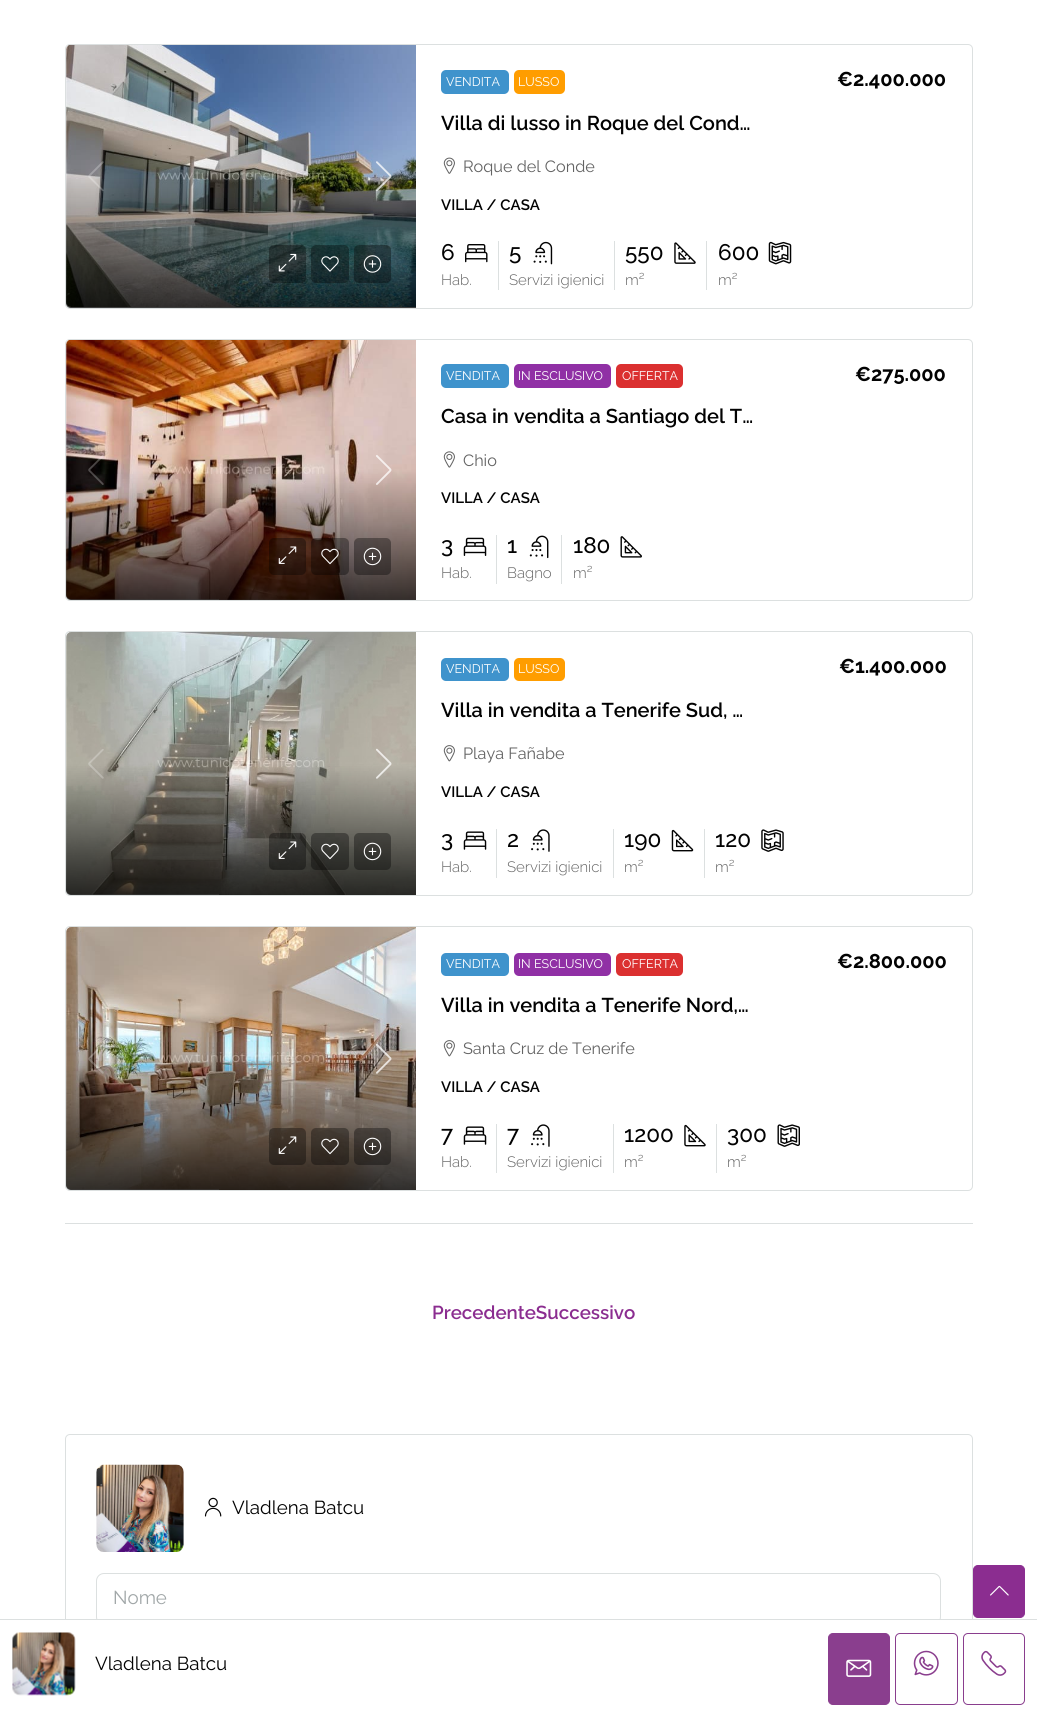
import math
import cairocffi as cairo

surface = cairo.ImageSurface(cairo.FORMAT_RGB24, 1037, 1717)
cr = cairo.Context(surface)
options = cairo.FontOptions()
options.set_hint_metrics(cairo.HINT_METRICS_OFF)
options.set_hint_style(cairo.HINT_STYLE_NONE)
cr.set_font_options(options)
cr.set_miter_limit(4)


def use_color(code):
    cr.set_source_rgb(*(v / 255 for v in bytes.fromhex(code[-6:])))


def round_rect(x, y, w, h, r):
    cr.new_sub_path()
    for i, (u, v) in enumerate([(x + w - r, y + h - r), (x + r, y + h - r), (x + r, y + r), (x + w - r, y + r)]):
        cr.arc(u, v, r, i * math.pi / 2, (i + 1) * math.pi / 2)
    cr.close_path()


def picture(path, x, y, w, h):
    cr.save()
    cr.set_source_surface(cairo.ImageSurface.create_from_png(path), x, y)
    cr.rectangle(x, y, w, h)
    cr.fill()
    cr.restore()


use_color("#ffffff")
cr.paint()
use_color("#dce0e0")
cr.rectangle(65, 1223, 908, 1)
cr.fill()
round_rect(65.5, 44.5, 907, 264, 4.5)
cr.set_line_width(1)
cr.stroke()
picture("img1.png", 66, 45, 350, 262)
gradient = cairo.LinearGradient(241, 45, 241, 308)
gradient.add_color_stop_rgba(0, 0, 0, 0, 0)
gradient.add_color_stop_rgba(0.5, 0, 0, 0, 0)
gradient.add_color_stop_rgba(1, 0, 0, 0, 0.75)
cr.set_source(gradient)
cr.new_path()
cr.move_to(71, 45)
cr.line_to(416, 45)
cr.line_to(416, 308)
cr.line_to(71, 308)
cr.curve_to(68, 308, 66, 306, 66, 303)
cr.line_to(66, 50)
cr.curve_to(66, 47, 68, 45, 71, 45)
cr.close_path()
cr.fill()
picture("img2.png", 88, 161, 16, 31)
picture("img3.png", 376, 161, 16, 31)
cr.set_source_rgba(0, 0, 0, 0.35)
round_rect(269, 245, 37, 38, 5)
cr.fill()
picture("img4.png", 278, 253, 19, 19)
round_rect(311, 245, 38, 38, 5)
cr.fill()
picture("img5.png", 321, 256, 18, 16)
round_rect(354, 245, 37, 38, 5)
cr.fill()
picture("img6.png", 363, 255, 19, 18)
use_color("#3f93cc")
round_rect(441, 70, 68, 24, 5)
cr.fill()
cr.select_font_face("Raleway")
cr.set_font_size(12.5)
use_color("#ffffff")
cr.move_to(446, 86)
cr.show_text("VENDITA")
use_color("#ff9d00")
round_rect(514, 70, 51, 24, 5)
cr.fill()
use_color("#ffffff")
cr.move_to(518, 86)
cr.show_text("LUSSO")
cr.select_font_face("Raleway", cairo.FONT_SLANT_NORMAL, cairo.FONT_WEIGHT_BOLD)
cr.set_font_size(20)
use_color("#020202")
cr.move_to(837, 86)
cr.show_text("€2.400.000")
cr.select_font_face("Raleway SemiBold")
cr.move_to(441, 130)
cr.show_text("Villa di lusso in Roque del Cond…")
picture("img7.png", 443, 157, 12, 17)
cr.select_font_face("Raleway")
cr.set_font_size(16.25)
use_color("#636363")
cr.move_to(463, 172)
cr.show_text("Roque del Conde")
cr.select_font_face("Raleway SemiBold")
cr.set_font_size(15)
use_color("#020202")
cr.move_to(441, 210)
cr.show_text("VILLA / CASA")
use_color("#dce0e0")
cr.rectangle(498, 241, 1, 49)
cr.fill()
cr.select_font_face("Raleway Medium")
cr.set_font_size(22.5)
use_color("#020202")
cr.move_to(441, 260)
cr.show_text("6")
picture("img8.png", 465, 244, 23, 19)
cr.select_font_face("Raleway Light")
cr.set_font_size(15)
use_color("#636363")
cr.move_to(441, 285)
cr.show_text("Hab.")
use_color("#dce0e0")
cr.rectangle(614, 241, 1, 49)
cr.fill()
cr.select_font_face("Raleway Medium")
cr.set_font_size(22.5)
use_color("#020202")
cr.move_to(509, 260)
cr.show_text("5")
picture("img9.png", 533, 241, 20, 24)
cr.select_font_face("Raleway Light")
cr.set_font_size(15)
use_color("#636363")
cr.move_to(509, 285)
cr.show_text("Servizi igienici")
use_color("#dce0e0")
cr.rectangle(706, 241, 1, 49)
cr.fill()
cr.select_font_face("Raleway Medium")
cr.set_font_size(22.5)
use_color("#020202")
cr.move_to(625, 260)
cr.show_text("550")
picture("img10.png", 674, 242, 22, 22)
cr.select_font_face("Raleway Light")
cr.set_font_size(15)
use_color("#636363")
cr.move_to(625, 285)
cr.show_text("m²")
cr.select_font_face("Raleway Medium")
cr.set_font_size(22.5)
use_color("#020202")
cr.move_to(718, 260)
cr.show_text("600")
picture("img11.png", 768, 241, 24, 24)
cr.select_font_face("Raleway Light")
cr.set_font_size(15)
use_color("#636363")
cr.move_to(718, 285)
cr.show_text("m²")
round_rect(65.5, 339.5, 907, 261, 4.5)
use_color("#dce0e0")
cr.stroke()
picture("img12.png", 66, 340, 350, 260)
gradient = cairo.LinearGradient(241, 340, 241, 600)
gradient.add_color_stop_rgba(0, 0, 0, 0, 0)
gradient.add_color_stop_rgba(0.5, 0, 0, 0, 0)
gradient.add_color_stop_rgba(1, 0, 0, 0, 0.75)
cr.set_source(gradient)
cr.new_path()
cr.move_to(71, 340)
cr.line_to(416, 340)
cr.line_to(416, 600)
cr.line_to(71, 600)
cr.curve_to(68, 600, 66, 598, 66, 595)
cr.line_to(66, 345)
cr.curve_to(66, 342, 68, 340, 71, 340)
cr.close_path()
cr.fill()
picture("img13.png", 88, 455, 16, 30)
picture("img14.png", 376, 455, 16, 30)
cr.set_source_rgba(0, 0, 0, 0.35)
round_rect(269, 538, 37, 37, 5)
cr.fill()
picture("img15.png", 278, 546, 19, 18)
round_rect(311, 538, 38, 37, 5)
cr.fill()
picture("img16.png", 321, 548, 18, 17)
round_rect(354, 538, 37, 37, 5)
cr.fill()
picture("img17.png", 363, 547, 19, 19)
use_color("#3f93cc")
round_rect(441, 364, 68, 24, 5)
cr.fill()
cr.select_font_face("Raleway")
cr.set_font_size(12.5)
use_color("#ffffff")
cr.move_to(446, 380)
cr.show_text("VENDITA")
use_color("#9030a5")
round_rect(514, 364, 97, 24, 5)
cr.fill()
use_color("#ffffff")
cr.move_to(518, 380)
cr.show_text("IN ESCLUSIVO")
use_color("#db3030")
round_rect(616, 364, 67, 24, 5)
cr.fill()
use_color("#ffffff")
cr.move_to(622, 380)
cr.show_text("OFFERTA")
cr.select_font_face("Raleway", cairo.FONT_SLANT_NORMAL, cairo.FONT_WEIGHT_BOLD)
cr.set_font_size(20)
use_color("#020202")
cr.move_to(855, 381)
cr.show_text("€275.000")
cr.select_font_face("Raleway SemiBold")
cr.move_to(441, 423)
cr.show_text("Casa in vendita a Santiago del T…")
picture("img18.png", 443, 451, 12, 17)
cr.select_font_face("Raleway")
cr.set_font_size(16.25)
use_color("#636363")
cr.move_to(463, 466)
cr.show_text("Chio")
cr.select_font_face("Raleway SemiBold")
cr.set_font_size(15)
use_color("#020202")
cr.move_to(441, 503)
cr.show_text("VILLA / CASA")
use_color("#dce0e0")
cr.rectangle(496, 535, 1, 49)
cr.fill()
cr.select_font_face("Raleway Medium")
cr.set_font_size(22.5)
use_color("#020202")
cr.move_to(441, 553)
cr.show_text("3")
picture("img19.png", 463, 537, 24, 19)
cr.select_font_face("Raleway Light")
cr.set_font_size(15)
use_color("#636363")
cr.move_to(441, 578)
cr.show_text("Hab.")
use_color("#dce0e0")
cr.rectangle(561, 535, 1, 49)
cr.fill()
cr.select_font_face("Raleway Medium")
cr.set_font_size(22.5)
use_color("#020202")
cr.move_to(507, 553)
cr.show_text("1")
picture("img20.png", 529, 535, 20, 24)
cr.select_font_face("Raleway Light")
cr.set_font_size(15)
use_color("#636363")
cr.move_to(507, 578)
cr.show_text("Bagno")
cr.select_font_face("Raleway Medium")
cr.set_font_size(22.5)
use_color("#020202")
cr.move_to(573, 553)
cr.show_text("180")
picture("img21.png", 620, 536, 22, 22)
cr.select_font_face("Raleway Light")
cr.set_font_size(15)
use_color("#636363")
cr.move_to(573, 578)
cr.show_text("m²")
round_rect(65.5, 631.5, 907, 264, 4.5)
use_color("#dce0e0")
cr.stroke()
picture("img22.png", 66, 632, 350, 263)
gradient = cairo.LinearGradient(241, 633, 241, 895)
gradient.add_color_stop_rgba(0, 0, 0, 0, 0)
gradient.add_color_stop_rgba(0.5, 0, 0, 0, 0)
gradient.add_color_stop_rgba(1, 0, 0, 0, 0.75)
cr.set_source(gradient)
cr.new_path()
cr.move_to(71, 633)
cr.line_to(416, 633)
cr.line_to(416, 895)
cr.line_to(71, 895)
cr.curve_to(68, 895, 66, 893, 66, 890)
cr.line_to(66, 638)
cr.curve_to(66, 635, 68, 633, 71, 633)
cr.close_path()
cr.fill()
picture("img23.png", 88, 749, 16, 30)
picture("img24.png", 376, 748, 16, 31)
cr.set_source_rgba(0, 0, 0, 0.35)
round_rect(269, 833, 37, 37, 5)
cr.fill()
picture("img25.png", 278, 841, 19, 18)
round_rect(311, 833, 38, 37, 5)
cr.fill()
picture("img26.png", 321, 843, 18, 17)
round_rect(354, 833, 37, 37, 5)
cr.fill()
picture("img27.png", 363, 842, 19, 19)
use_color("#3f93cc")
round_rect(441, 658, 68, 23, 5)
cr.fill()
cr.select_font_face("Raleway")
cr.set_font_size(12.5)
use_color("#ffffff")
cr.move_to(446, 673)
cr.show_text("VENDITA")
use_color("#ff9d00")
round_rect(514, 658, 51, 23, 5)
cr.fill()
use_color("#ffffff")
cr.move_to(518, 673)
cr.show_text("LUSSO")
cr.select_font_face("Raleway", cairo.FONT_SLANT_NORMAL, cairo.FONT_WEIGHT_BOLD)
cr.set_font_size(20)
use_color("#020202")
cr.move_to(839, 673)
cr.show_text("€1.400.000")
cr.select_font_face("Raleway SemiBold")
cr.move_to(441, 717)
cr.show_text("Villa in vendita a Tenerife Sud, …")
picture("img28.png", 443, 745, 12, 17)
cr.select_font_face("Raleway")
cr.set_font_size(16.25)
use_color("#636363")
cr.move_to(463, 759)
cr.show_text("Playa Fañabe")
cr.select_font_face("Raleway SemiBold")
cr.set_font_size(15)
use_color("#020202")
cr.move_to(441, 797)
cr.show_text("VILLA / CASA")
use_color("#dce0e0")
cr.rectangle(496, 829, 1, 49)
cr.fill()
cr.select_font_face("Raleway Medium")
cr.set_font_size(22.5)
use_color("#020202")
cr.move_to(441, 847)
cr.show_text("3")
picture("img29.png", 463, 831, 24, 19)
cr.select_font_face("Raleway Light")
cr.set_font_size(15)
use_color("#636363")
cr.move_to(441, 872)
cr.show_text("Hab.")
use_color("#dce0e0")
cr.rectangle(613, 829, 1, 49)
cr.fill()
cr.select_font_face("Raleway Medium")
cr.set_font_size(22.5)
use_color("#020202")
cr.move_to(507, 847)
cr.show_text("2")
picture("img30.png", 531, 829, 19, 23)
cr.select_font_face("Raleway Light")
cr.set_font_size(15)
use_color("#636363")
cr.move_to(507, 872)
cr.show_text("Servizi igienici")
use_color("#dce0e0")
cr.rectangle(704, 829, 1, 49)
cr.fill()
cr.select_font_face("Raleway Medium")
cr.set_font_size(22.5)
use_color("#020202")
cr.move_to(624, 847)
cr.show_text("190")
picture("img31.png", 671, 829, 23, 23)
cr.select_font_face("Raleway Light")
cr.set_font_size(15)
use_color("#636363")
cr.move_to(624, 872)
cr.show_text("m²")
cr.select_font_face("Raleway Medium")
cr.set_font_size(22.5)
use_color("#020202")
cr.move_to(715, 847)
cr.show_text("120")
picture("img32.png", 761, 829, 23, 23)
cr.select_font_face("Raleway Light")
cr.set_font_size(15)
use_color("#636363")
cr.move_to(715, 872)
cr.show_text("m²")
round_rect(65.5, 926.5, 907, 264, 4.5)
use_color("#dce0e0")
cr.stroke()
picture("img33.png", 66, 927, 350, 263)
gradient = cairo.LinearGradient(241, 928, 241, 1190)
gradient.add_color_stop_rgba(0, 0, 0, 0, 0)
gradient.add_color_stop_rgba(0.5, 0, 0, 0, 0)
gradient.add_color_stop_rgba(1, 0, 0, 0, 0.75)
cr.set_source(gradient)
cr.new_path()
cr.move_to(71, 928)
cr.line_to(416, 928)
cr.line_to(416, 1190)
cr.line_to(71, 1190)
cr.curve_to(68, 1190, 66, 1188, 66, 1185)
cr.line_to(66, 933)
cr.curve_to(66, 930, 68, 928, 71, 928)
cr.close_path()
cr.fill()
picture("img34.png", 88, 1043, 16, 31)
picture("img35.png", 376, 1043, 16, 31)
cr.set_source_rgba(0, 0, 0, 0.35)
round_rect(269, 1128, 37, 37, 5)
cr.fill()
picture("img36.png", 278, 1136, 19, 18)
round_rect(311, 1128, 38, 37, 5)
cr.fill()
picture("img37.png", 321, 1138, 18, 17)
round_rect(354, 1128, 37, 37, 5)
cr.fill()
picture("img38.png", 363, 1137, 19, 19)
use_color("#3f93cc")
round_rect(441, 953, 68, 23, 5)
cr.fill()
cr.select_font_face("Raleway")
cr.set_font_size(12.5)
use_color("#ffffff")
cr.move_to(446, 968)
cr.show_text("VENDITA")
use_color("#9030a5")
round_rect(514, 953, 97, 23, 5)
cr.fill()
use_color("#ffffff")
cr.move_to(518, 968)
cr.show_text("IN ESCLUSIVO")
use_color("#db3030")
round_rect(616, 953, 67, 23, 5)
cr.fill()
use_color("#ffffff")
cr.move_to(622, 968)
cr.show_text("OFFERTA")
cr.select_font_face("Raleway", cairo.FONT_SLANT_NORMAL, cairo.FONT_WEIGHT_BOLD)
cr.set_font_size(20)
use_color("#020202")
cr.move_to(837, 968)
cr.show_text("€2.800.000")
cr.select_font_face("Raleway SemiBold")
cr.move_to(441, 1012)
cr.show_text("Villa in vendita a Tenerife Nord,…")
picture("img28.png", 443, 1040, 12, 17)
cr.select_font_face("Raleway")
cr.set_font_size(16.25)
use_color("#636363")
cr.move_to(463, 1054)
cr.show_text("Santa Cruz de Tenerife")
cr.select_font_face("Raleway SemiBold")
cr.set_font_size(15)
use_color("#020202")
cr.move_to(441, 1092)
cr.show_text("VILLA / CASA")
use_color("#dce0e0")
cr.rectangle(496, 1124, 1, 49)
cr.fill()
cr.select_font_face("Raleway Medium")
cr.set_font_size(22.5)
use_color("#020202")
cr.move_to(441, 1142)
cr.show_text("7")
picture("img29.png", 463, 1126, 24, 19)
cr.select_font_face("Raleway Light")
cr.set_font_size(15)
use_color("#636363")
cr.move_to(441, 1167)
cr.show_text("Hab.")
use_color("#dce0e0")
cr.rectangle(613, 1124, 1, 49)
cr.fill()
cr.select_font_face("Raleway Medium")
cr.set_font_size(22.5)
use_color("#020202")
cr.move_to(507, 1142)
cr.show_text("7")
picture("img30.png", 531, 1124, 19, 23)
cr.select_font_face("Raleway Light")
cr.set_font_size(15)
use_color("#636363")
cr.move_to(507, 1167)
cr.show_text("Servizi igienici")
use_color("#dce0e0")
cr.rectangle(716, 1124, 1, 49)
cr.fill()
cr.select_font_face("Raleway Medium")
cr.set_font_size(22.5)
use_color("#020202")
cr.move_to(624, 1142)
cr.show_text("1200")
picture("img39.png", 684, 1124, 22, 23)
cr.select_font_face("Raleway Light")
cr.set_font_size(15)
use_color("#636363")
cr.move_to(624, 1167)
cr.show_text("m²")
cr.select_font_face("Raleway Medium")
cr.set_font_size(22.5)
use_color("#020202")
cr.move_to(727, 1142)
cr.show_text("300")
picture("img40.png", 777, 1124, 23, 23)
cr.select_font_face("Raleway Light")
cr.set_font_size(15)
use_color("#636363")
cr.move_to(727, 1167)
cr.show_text("m²")
cr.select_font_face("Raleway SemiBold")
cr.set_font_size(18.75)
use_color("#8b2d90")
cr.move_to(432, 1319)
cr.show_text("PrecedenteSuccessivo")
round_rect(65.5, 1434.5, 907, 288, 4.5)
use_color("#dce0e0")
cr.stroke()
picture("img41.png", 96, 1464, 88, 88)
picture("img42.png", 204, 1497, 18, 20)
cr.select_font_face("Raleway")
use_color("#020202")
cr.move_to(232, 1514)
cr.show_text("Vladlena Batcu")
round_rect(96.5, 1573.5, 844, 51, 7.5)
use_color("#dce0e0")
cr.stroke()
use_color("#a1a7a8")
cr.move_to(113, 1604)
cr.show_text("Nome")
use_color("#ffffff")
cr.rectangle(65, 1620, 908, 97)
cr.fill()
use_color("#dce0e0")
cr.rectangle(0, 1619, 1037, 1)
cr.fill()
picture("img43.png", 12, 1632, 64, 64)
use_color("#020202")
cr.move_to(95, 1670)
cr.show_text("Vladlena Batcu")
use_color("#8a3e8e")
round_rect(828.5, 1633.5, 61, 71, 4.5)
cr.fill_preserve()
cr.stroke()
picture("img44.png", 846, 1659, 26, 18)
round_rect(895.5, 1633.5, 62, 71, 4.5)
cr.stroke()
picture("img45.png", 913, 1650, 26, 26)
round_rect(963.5, 1633.5, 61, 71, 4.5)
cr.stroke()
picture("img46.png", 981, 1650, 26, 26)
use_color("#8b2d90")
round_rect(973.5, 1565.5, 51, 52, 4.5)
cr.fill_preserve()
cr.stroke()
picture("img47.png", 990, 1585, 19, 11)
surface.write_to_png("result.png")
